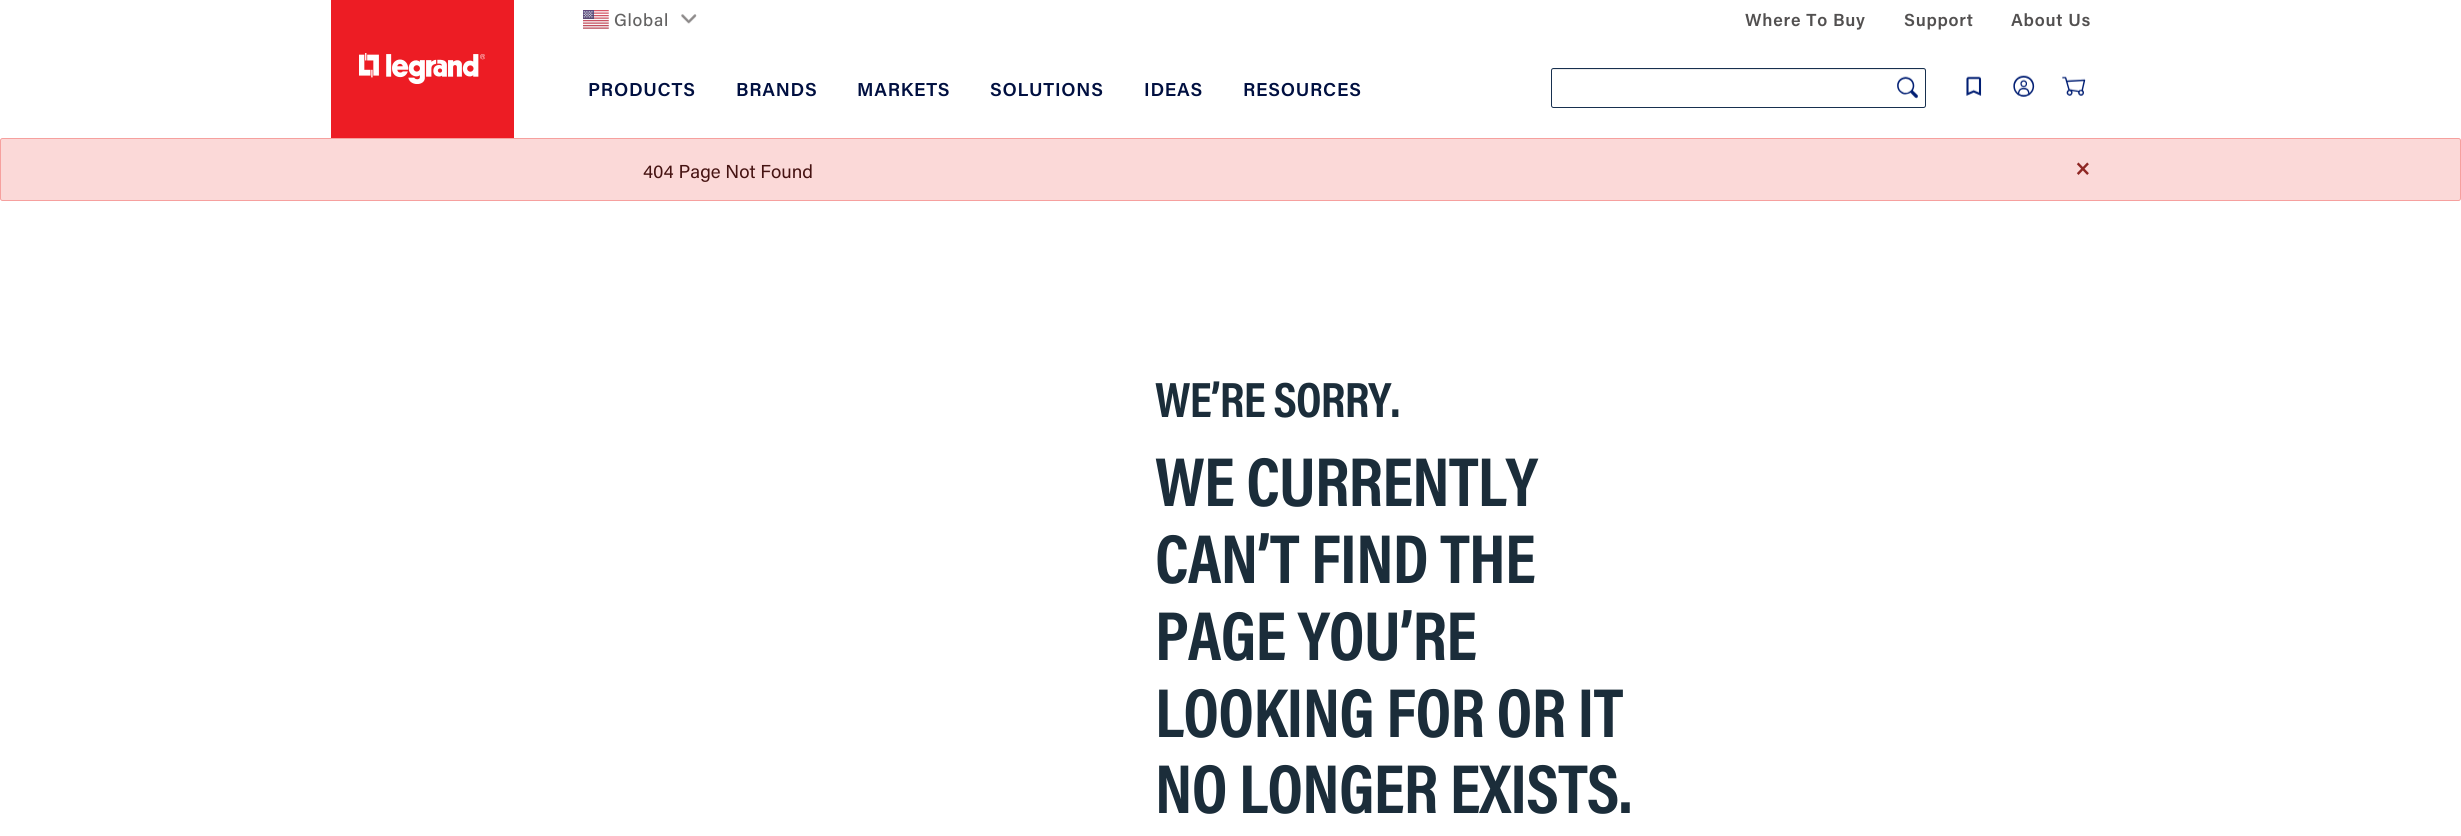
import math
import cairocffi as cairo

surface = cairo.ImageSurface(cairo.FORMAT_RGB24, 2461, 836)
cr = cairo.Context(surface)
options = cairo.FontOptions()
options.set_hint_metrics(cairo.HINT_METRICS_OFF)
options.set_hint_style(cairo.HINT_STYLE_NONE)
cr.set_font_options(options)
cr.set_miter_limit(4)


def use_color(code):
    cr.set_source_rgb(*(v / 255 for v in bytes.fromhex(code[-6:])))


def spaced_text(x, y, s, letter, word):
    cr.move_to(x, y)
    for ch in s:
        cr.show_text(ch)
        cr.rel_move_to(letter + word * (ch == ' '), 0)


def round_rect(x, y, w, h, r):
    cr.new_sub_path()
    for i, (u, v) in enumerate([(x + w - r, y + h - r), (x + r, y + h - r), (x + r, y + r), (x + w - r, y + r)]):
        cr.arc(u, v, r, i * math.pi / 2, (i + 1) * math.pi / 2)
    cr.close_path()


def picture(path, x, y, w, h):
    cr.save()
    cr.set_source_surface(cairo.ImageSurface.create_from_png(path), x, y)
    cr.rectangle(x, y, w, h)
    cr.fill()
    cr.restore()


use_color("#ffffff")
cr.paint()
picture("img1.png", 583, 10, 26, 19)
cr.select_font_face("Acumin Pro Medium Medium")
cr.set_font_size(17.5)
use_color("#636262")
spaced_text(614, 26, "Global", 0.75, 0)
picture("img2.png", 681, 14, 16, 10)
cr.select_font_face("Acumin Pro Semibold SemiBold")
use_color("#525050")
spaced_text(1745, 26, "Where To Buy", 0.75, 0)
spaced_text(1904, 26, "Support", 0.75, 0)
spaced_text(2011, 26, "About Us", 0.75, 0)
use_color("#ed1c24")
cr.rectangle(331, 0, 183, 138)
cr.fill()
picture("img3.png", 359, 53, 126, 31)
cr.set_font_size(18.75)
use_color("#000f40")
spaced_text(588, 96, "PRODUCTS", 0.75, 0)
spaced_text(736, 96, "BRANDS", 0.75, 0)
spaced_text(857, 96, "MARKETS", 0.75, 0)
spaced_text(990, 96, "SOLUTIONS", 0.75, 0)
spaced_text(1144, 96, "IDEAS", 0.75, 0)
spaced_text(1243, 96, "RESOURCES", 0.75, 0)
use_color("#ececec")
cr.new_path()
cr.move_to(1554, 70)
cr.line_to(1924, 70)
cr.line_to(1925, 71)
cr.curve_to(1925, 70, 1925, 69, 1924, 69)
cr.line_to(1554, 69)
cr.curve_to(1553, 69, 1553, 70, 1553, 70)
cr.close_path()
cr.fill()
round_rect(1551.5, 68.5, 374, 39, 2)
use_color("#17304f")
cr.set_line_width(1)
cr.stroke()
picture("img4.png", 1897, 76, 21, 23)
picture("img5.png", 1966, 76, 16, 20)
picture("img6.png", 2013, 75, 22, 22)
picture("img7.png", 2062, 76, 24, 20)
use_color("#fbd9d8")
round_rect(0.5, 138.5, 2460, 62, 2)
cr.fill_preserve()
use_color("#f6a09e")
cr.stroke()
cr.select_font_face("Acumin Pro")
use_color("#461312")
cr.move_to(643, 178)
cr.show_text("404 Page Not Found")
cr.select_font_face("Acumin Pro", cairo.FONT_SLANT_NORMAL, cairo.FONT_WEIGHT_BOLD)
cr.set_font_size(22)
use_color("#8e2724")
cr.move_to(2075, 175)
cr.show_text("×")
cr.select_font_face("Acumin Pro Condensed", cairo.FONT_SLANT_NORMAL, cairo.FONT_WEIGHT_BOLD)
cr.set_font_size(50)
use_color("#1b2d3a")
spaced_text(1155, 417, "WE’RE SORRY.", -0.75, 0)
cr.set_font_size(70)
spaced_text(1155, 506, "WE CURRENTLY", -0.75, 0)
spaced_text(1155, 583, "CAN’T FIND THE", -0.75, 0)
spaced_text(1155, 660, "PAGE YOU’RE", -0.75, 0)
spaced_text(1155, 737, "LOOKING FOR OR IT", -0.75, 0)
spaced_text(1155, 813, "NO LONGER EXISTS.", -0.75, 0)
surface.write_to_png("result.png")
